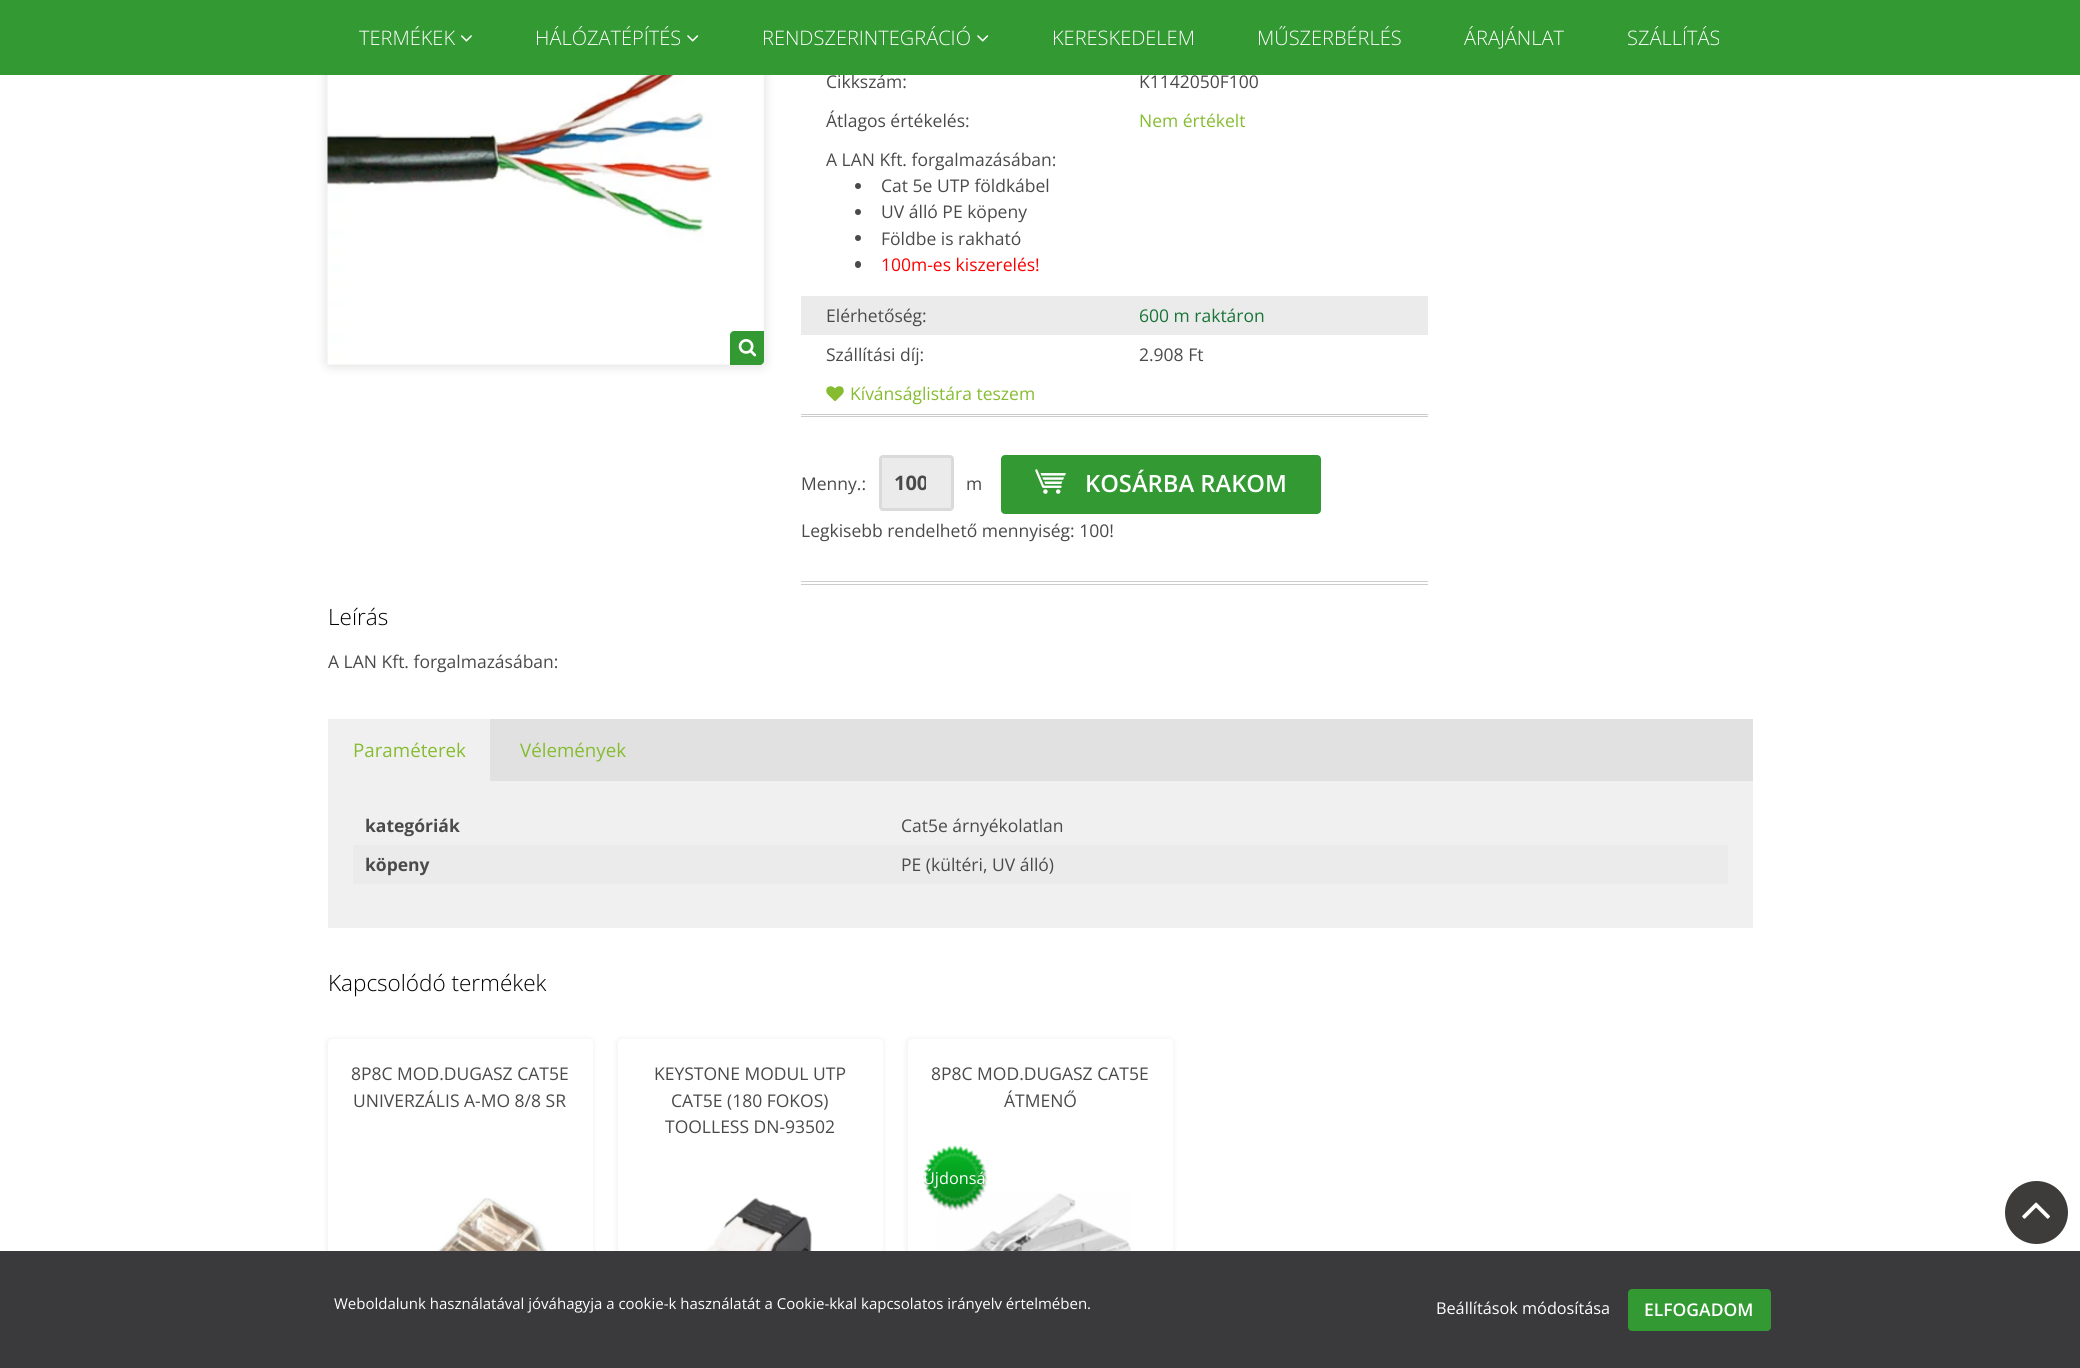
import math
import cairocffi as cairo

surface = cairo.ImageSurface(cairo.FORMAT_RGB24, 2080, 1368)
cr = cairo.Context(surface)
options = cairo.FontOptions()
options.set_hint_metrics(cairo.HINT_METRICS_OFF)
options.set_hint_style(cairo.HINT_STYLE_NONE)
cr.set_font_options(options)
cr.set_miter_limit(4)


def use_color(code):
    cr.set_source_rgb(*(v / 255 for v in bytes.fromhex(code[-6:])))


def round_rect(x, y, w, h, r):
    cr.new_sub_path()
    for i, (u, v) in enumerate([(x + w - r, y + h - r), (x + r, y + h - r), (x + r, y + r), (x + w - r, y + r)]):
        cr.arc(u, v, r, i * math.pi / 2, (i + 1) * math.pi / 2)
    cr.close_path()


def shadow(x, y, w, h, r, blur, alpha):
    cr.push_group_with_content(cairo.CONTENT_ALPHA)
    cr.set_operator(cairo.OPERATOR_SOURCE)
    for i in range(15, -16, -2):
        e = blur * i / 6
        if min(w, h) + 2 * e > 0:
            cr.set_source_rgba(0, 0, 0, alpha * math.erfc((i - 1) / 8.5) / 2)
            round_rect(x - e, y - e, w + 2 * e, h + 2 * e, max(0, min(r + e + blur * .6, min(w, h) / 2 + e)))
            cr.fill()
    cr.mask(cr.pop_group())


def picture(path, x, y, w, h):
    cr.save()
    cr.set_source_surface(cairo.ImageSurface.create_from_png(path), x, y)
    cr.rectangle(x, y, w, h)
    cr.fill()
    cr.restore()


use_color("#ffffff")
cr.paint()
use_color("#000000")
shadow(325, -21, 441, 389, 6, 5, 0.1)
cr.select_font_face("Open Sans")
cr.set_font_size(17.5)
use_color("#4a4a4a")
cr.move_to(826, 88)
cr.show_text("Cikkszám:")
use_color("#339933")
cr.rectangle(0, 0, 2080, 75)
cr.fill()
cr.select_font_face("Open Sans Light")
cr.set_font_size(20)
use_color("#ffffff")
cr.move_to(359, 45)
cr.show_text("TERMÉKEK")
picture("img1.png", 460, 35, 12, 7)
cr.move_to(535, 45)
cr.show_text("HÁLÓZATÉPÍTÉS")
picture("img2.png", 687, 35, 12, 7)
cr.move_to(762, 45)
cr.show_text("RENDSZERINTEGRÁCIÓ")
picture("img2.png", 977, 35, 12, 7)
cr.move_to(1052, 45)
cr.show_text("KERESKEDELEM")
cr.move_to(1257, 45)
cr.show_text("MŰSZERBÉRLÉS")
cr.move_to(1464, 45)
cr.show_text("ÁRAJÁNLAT")
cr.move_to(1627, 45)
cr.show_text("SZÁLLÍTÁS")
picture("img3.png", 327, 75, 437, 290)
use_color("#339933")
cr.new_path()
cr.move_to(734, 331)
cr.line_to(764, 331)
cr.line_to(764, 361)
cr.curve_to(764, 363, 762, 365, 760, 365)
cr.line_to(730, 365)
cr.line_to(730, 335)
cr.curve_to(730, 333, 732, 331, 734, 331)
cr.close_path()
cr.fill()
picture("img4.png", 738, 339, 19, 18)
cr.select_font_face("Open Sans")
cr.set_font_size(17.5)
use_color("#4a4a4a")
cr.move_to(1139, 88)
cr.show_text("K1142050F100")
cr.move_to(826, 127)
cr.show_text("Átlagos értékelés:")
use_color("#85bc30")
cr.move_to(1139, 127)
cr.show_text("Nem értékelt")
use_color("#4a4a4a")
cr.move_to(826, 166)
cr.show_text("A LAN Kft. forgalmazásában:")
cr.new_path()
cr.arc(858, 186, 3, 0, 2 * math.pi)
cr.fill()
cr.move_to(881, 192)
cr.show_text("Cat 5e UTP földkábel")
cr.new_path()
cr.arc(858, 212, 3, 0, 2 * math.pi)
cr.fill()
cr.move_to(881, 218)
cr.show_text("UV álló PE köpeny")
cr.new_path()
cr.arc(858, 238, 3, 0, 2 * math.pi)
cr.fill()
cr.move_to(881, 245)
cr.show_text("Földbe is rakható")
round_rect(855, 261, 6, 7, 3)
cr.fill()
use_color("#ff0000")
cr.move_to(881, 271)
cr.show_text("100m-es kiszerelés!")
use_color("#ebebeb")
cr.rectangle(801, 296, 627, 39)
cr.fill()
use_color("#4a4a4a")
cr.move_to(826, 322)
cr.show_text("Elérhetőség:")
use_color("#177537")
cr.move_to(1139, 322)
cr.show_text("600 m raktáron")
use_color("#4a4a4a")
cr.move_to(826, 361)
cr.show_text("Szállítási díj:")
cr.move_to(1139, 361)
cr.show_text("2.908 Ft")
picture("img5.png", 826, 386, 18, 16)
use_color("#85bc30")
cr.move_to(850, 400)
cr.show_text("Kívánságlistára teszem")
use_color("#cccccc")
cr.rectangle(801, 414, 627, 1)
cr.fill()
cr.rectangle(801, 416, 627, 1)
cr.fill()
cr.rectangle(801, 581, 627, 1)
cr.fill()
cr.rectangle(801, 584, 627, 1)
cr.fill()
use_color("#4a4a4a")
cr.move_to(801, 490)
cr.show_text("Menny.:")
use_color("#ebebeb")
round_rect(880.5, 456.5, 72, 53, 2.5)
cr.fill_preserve()
use_color("#dadada")
cr.set_line_width(3)
cr.stroke()
cr.save()
cr.rectangle(894, 469, 32, 27)
cr.clip()
cr.select_font_face("Open Sans", cairo.FONT_SLANT_NORMAL, cairo.FONT_WEIGHT_BOLD)
cr.set_font_size(20)
use_color("#4a4a4a")
cr.move_to(894, 490)
cr.show_text("100")
cr.restore()
use_color("#4a4a4a")
cr.move_to(966, 490)
cr.show_text("m")
use_color("#339933")
round_rect(1002.5, 456.5, 317, 56, 2.5)
cr.fill_preserve()
cr.stroke()
picture("img6.png", 1035, 469, 31, 25)
cr.select_font_face("Open Sans SemiBold")
cr.set_font_size(23.75)
use_color("#ffffff")
cr.move_to(1085, 492)
cr.show_text("KOSÁRBA RAKOM")
cr.select_font_face("Open Sans")
cr.set_font_size(17.5)
use_color("#4a4a4a")
cr.move_to(801, 537)
cr.show_text("Legkisebb rendelhető mennyiség: 100!")
cr.select_font_face("Open Sans Light")
cr.set_font_size(22.5)
use_color("#000000")
cr.move_to(328, 625)
cr.show_text("Leírás")
cr.select_font_face("Open Sans")
cr.set_font_size(17.5)
use_color("#4a4a4a")
cr.move_to(328, 668)
cr.show_text("A LAN Kft. forgalmazásában:")
use_color("#e1e1e1")
cr.rectangle(490, 719, 1263, 62)
cr.fill()
use_color("#f0f0f0")
cr.rectangle(328, 719, 162, 62)
cr.fill()
cr.set_font_size(18.75)
use_color("#85bc30")
cr.move_to(353, 757)
cr.show_text("Paraméterek")
cr.move_to(520, 757)
cr.show_text("Vélemények")
use_color("#f0f0f0")
cr.rectangle(328, 781, 1425, 147)
cr.fill()
cr.select_font_face("Open Sans", cairo.FONT_SLANT_NORMAL, cairo.FONT_WEIGHT_BOLD)
cr.set_font_size(17.5)
use_color("#4a4a4a")
cr.move_to(365, 832)
cr.show_text("kategóriák")
cr.select_font_face("Open Sans")
cr.move_to(901, 832)
cr.show_text("Cat5e árnyékolatlan")
use_color("#ebebeb")
cr.rectangle(353, 845, 1375, 39)
cr.fill()
cr.select_font_face("Open Sans", cairo.FONT_SLANT_NORMAL, cairo.FONT_WEIGHT_BOLD)
use_color("#4a4a4a")
cr.move_to(365, 871)
cr.show_text("köpeny")
cr.select_font_face("Open Sans")
cr.move_to(901, 871)
cr.show_text("PE (kültéri, UV álló)")
cr.select_font_face("Open Sans Light")
cr.set_font_size(22.5)
use_color("#000000")
cr.move_to(328, 991)
cr.show_text("Kapcsolódó termékek")
use_color("#000000")
shadow(326, 1038, 268, 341, 5, 2, 0.05)
use_color("#ffffff")
round_rect(328, 1039, 265, 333, 4)
cr.fill()
cr.select_font_face("Open Sans")
cr.set_font_size(17.5)
use_color("#4a4a4a")
cr.move_to(351, 1080)
cr.show_text("8P8C MOD.DUGASZ CAT5E")
cr.move_to(353, 1107)
cr.show_text("UNIVERZÁLIS A-MO 8/8 SR")
picture("img7.png", 406, 1198, 141, 53)
use_color("#000000")
shadow(616, 1038, 268, 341, 5, 2, 0.05)
use_color("#ffffff")
round_rect(618, 1039, 265, 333, 4)
cr.fill()
use_color("#4a4a4a")
cr.move_to(654, 1080)
cr.show_text("KEYSTONE MODUL UTP")
cr.move_to(671, 1107)
cr.show_text("CAT5E (180 FOKOS)")
cr.move_to(665, 1133)
cr.show_text("TOOLLESS DN-93502")
picture("img8.png", 692, 1197, 120, 54)
use_color("#000000")
shadow(906, 1038, 268, 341, 5, 2, 0.05)
use_color("#ffffff")
round_rect(908, 1039, 265, 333, 4)
cr.fill()
use_color("#4a4a4a")
cr.move_to(931, 1080)
cr.show_text("8P8C MOD.DUGASZ CAT5E")
cr.move_to(1004, 1107)
cr.show_text("ÁTMENŐ")
picture("img10.png", 937, 1193, 196, 58)
picture("img9.png", 923, 1145, 65, 66)
cr.set_font_size(16.25)
use_color("#ffffff")
cr.move_to(923, 1184)
cr.show_text("Újdonsá")
use_color("#3d3c3a")
cr.new_path()
cr.arc(2036.5, 1212.5, 31.5, 0, 2 * math.pi)
cr.fill()
picture("img11.png", 2022, 1202, 28, 17)
use_color("#3a393b")
cr.rectangle(0, 1251, 2080, 117)
cr.fill()
cr.set_font_size(15)
use_color("#ffffff")
cr.move_to(334, 1309)
cr.show_text("Weboldalunk használatával jóváhagyja a cookie-k használatát a Cookie-kkal kapcsolatos irányelv értelmében.")
cr.set_font_size(16.25)
cr.move_to(1436, 1314)
cr.show_text("Beállítások módosítása")
use_color("#339933")
round_rect(1629.5, 1290.5, 140, 39, 2.5)
cr.fill_preserve()
cr.stroke()
cr.select_font_face("Open Sans SemiBold")
cr.set_font_size(17.5)
use_color("#ffffff")
cr.move_to(1644, 1316)
cr.show_text("ELFOGADOM")
surface.write_to_png("result.png")
